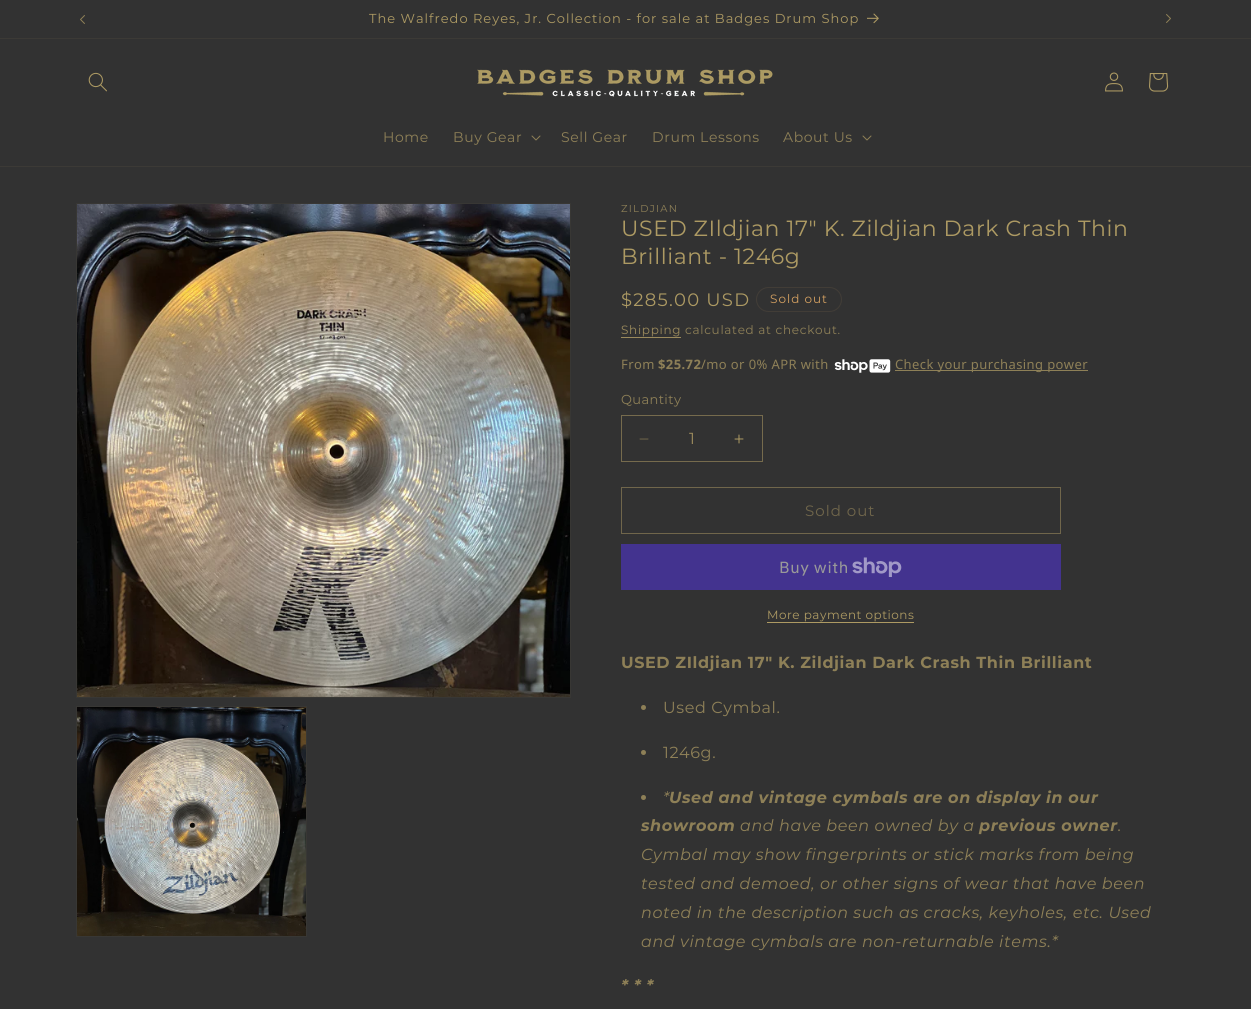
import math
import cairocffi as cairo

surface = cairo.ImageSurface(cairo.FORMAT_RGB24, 1251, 1009)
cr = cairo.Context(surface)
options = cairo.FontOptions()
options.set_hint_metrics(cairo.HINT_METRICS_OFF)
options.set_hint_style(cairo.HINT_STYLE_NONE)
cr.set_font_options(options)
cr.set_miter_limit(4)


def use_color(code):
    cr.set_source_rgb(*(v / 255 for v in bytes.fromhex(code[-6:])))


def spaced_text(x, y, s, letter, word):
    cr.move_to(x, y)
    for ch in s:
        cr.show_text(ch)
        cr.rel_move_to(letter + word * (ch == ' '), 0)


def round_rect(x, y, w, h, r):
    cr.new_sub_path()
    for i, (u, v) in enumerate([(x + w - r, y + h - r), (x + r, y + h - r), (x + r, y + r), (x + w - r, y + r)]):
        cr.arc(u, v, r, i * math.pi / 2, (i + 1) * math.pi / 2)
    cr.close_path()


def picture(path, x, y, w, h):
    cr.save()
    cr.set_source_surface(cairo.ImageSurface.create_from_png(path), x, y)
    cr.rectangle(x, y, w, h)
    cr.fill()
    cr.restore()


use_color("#323232")
cr.paint()
use_color("#3c3a36")
cr.rectangle(0, 38, 1251, 1)
cr.fill()
picture("img1.png", 80, 15, 5, 9)
cr.select_font_face("Montserrat")
cr.set_font_size(13)
use_color("#ad9a63")
spaced_text(369, 23, "The Walfredo Reyes, Jr. Collection - for sale at Badges Drum Shop", 1, 0)
picture("img2.png", 867, 13, 12, 11)
picture("img3.png", 1166, 14, 5, 9)
use_color("#3c3a36")
cr.rectangle(0, 166, 1251, 1)
cr.fill()
picture("img4.png", 88, 72, 19, 20)
picture("img5.png", 477, 69, 296, 28)
picture("img6.png", 1105, 72, 18, 20)
picture("img7.png", 1149, 73, 20, 19)
cr.set_font_size(14)
use_color("#8e8057")
spaced_text(383, 142, "Home", 0.6, 0)
spaced_text(453, 142, "Buy Gear", 0.6, 0)
picture("img8.png", 531, 135, 10, 6)
spaced_text(561, 142, "Sell Gear", 0.6, 0)
spaced_text(652, 142, "Drum Lessons", 0.6, 0)
spaced_text(783, 142, "About Us", 0.6, 0)
picture("img8.png", 862, 135, 10, 6)
cr.rectangle(76.5, 203.5, 494, 494)
use_color("#383734")
cr.set_line_width(1)
cr.stroke()
picture("img9.png", 77, 204, 493, 493)
cr.rectangle(76.5, 706.5, 230, 230)
cr.stroke()
picture("img10.png", 77, 707, 229, 229)
cr.set_font_size(10)
use_color("#8e8057")
spaced_text(621, 212, "ZILDJIAN", 1.25, 0)
cr.set_font_size(22)
use_color("#ad9a63")
spaced_text(621, 236, "USED ZIldjian 17\" K. Zildjian Dark Crash Thin", 0.6, 0)
spaced_text(621, 264, "Brilliant - 1246g", 0.6, 0)
cr.set_font_size(18)
spaced_text(621, 306, "$285.00 USD", 1.25, 0)
round_rect(756.5, 287.5, 85, 24, 12)
use_color("#423d37")
cr.stroke()
cr.set_font_size(12)
use_color("#d4a061")
spaced_text(770, 303, "Sold out", 1, 0)
use_color("#9b8a5c")
spaced_text(621, 334, "Shipping", 0.7, 0)
cr.rectangle(621, 337, 60, 1)
cr.fill()
use_color("#8e8057")
spaced_text(685, 334, "calculated at checkout.", 0.7, 0)
cr.select_font_face("Noto Sans")
cr.set_font_size(13)
spaced_text(621, 369, "From", 0.4, 0)
cr.select_font_face("Noto Sans", cairo.FONT_SLANT_NORMAL, cairo.FONT_WEIGHT_BOLD)
spaced_text(658, 369, "$25.72", 0.4, 0)
cr.select_font_face("Noto Sans")
spaced_text(701, 369, "/mo or 0% APR with", 0.4, 0)
picture("img11.png", 834, 359, 57, 14)
cr.rectangle(895, 370, 193, 1)
cr.fill()
spaced_text(895, 369, "Check your purchasing power", 0.4, 0)
cr.select_font_face("Montserrat")
spaced_text(621, 404, "Quantity", 0.4, 0)
picture("img12.png", 639, 438, 10, 2)
picture("img13.png", 734, 434, 10, 10)
cr.rectangle(621.5, 415.5, 141, 46)
use_color("#766b4d")
cr.stroke()
cr.set_font_size(16)
use_color("#9b8a5c")
cr.move_to(689, 444)
cr.show_text("1")
cr.rectangle(621.5, 487.5, 439, 46)
use_color("#70664b")
cr.stroke()
cr.set_font_size(15)
spaced_text(805, 516, "Sold out", 1, 0)
use_color("#43338f")
cr.rectangle(621, 544, 440, 46)
cr.fill()
cr.select_font_face("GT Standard")
cr.set_font_size(16)
use_color("#999999")
spaced_text(779, 573, "Buy with", 0.6, 0)
picture("img14.png", 852, 557, 50, 20)
cr.select_font_face("Montserrat")
cr.set_font_size(12)
use_color("#ad9a63")
spaced_text(767, 619, "More payment options", 0.5, 0)
cr.rectangle(767, 622, 147, 1)
cr.fill()
cr.select_font_face("Montserrat", cairo.FONT_SLANT_NORMAL, cairo.FONT_WEIGHT_BOLD)
cr.set_font_size(16)
use_color("#8e8057")
spaced_text(621, 668, "USED ZIldjian 17\" K. Zildjian Dark Crash Thin Brilliant", 0.6, 0)
cr.new_path()
cr.arc(643.5, 707.5, 2.5, 0, 2 * math.pi)
cr.fill()
cr.select_font_face("Montserrat")
spaced_text(663, 713, "Used Cymbal.", 0.6, 0)
cr.new_path()
cr.arc(643.5, 752.5, 2.5, 0, 2 * math.pi)
cr.fill()
spaced_text(663, 758, "1246g.", 0.6, 0)
cr.select_font_face("Montserrat", cairo.FONT_SLANT_ITALIC)
spaced_text(663, 803, "*", 0.6, 0)
cr.select_font_face("Montserrat", cairo.FONT_SLANT_ITALIC, cairo.FONT_WEIGHT_BOLD)
spaced_text(669, 803, "Used and vintage cymbals are on display in our", 0.6, 0)
cr.new_path()
cr.arc(643.5, 797.5, 2.5, 0, 2 * math.pi)
cr.fill()
spaced_text(641, 831, "showroom", 0.6, 0)
cr.select_font_face("Montserrat", cairo.FONT_SLANT_ITALIC)
spaced_text(740, 831, "and have been owned by a", 0.6, 0)
cr.select_font_face("Montserrat", cairo.FONT_SLANT_ITALIC, cairo.FONT_WEIGHT_BOLD)
spaced_text(979, 831, "previous owner", 0.6, 0)
cr.select_font_face("Montserrat", cairo.FONT_SLANT_ITALIC)
spaced_text(1118, 831, ".", 0.6, 0)
spaced_text(641, 860, "Cymbal may show fingerprints or stick marks from being", 0.6, 0)
spaced_text(641, 889, "tested and demoed, or other signs of wear that have been", 0.6, 0)
spaced_text(641, 918, "noted in the description such as cracks, keyholes, etc. Used", 0.6, 0)
spaced_text(641, 947, "and vintage cymbals are non-returnable items.*", 0.6, 0)
cr.select_font_face("Montserrat", cairo.FONT_SLANT_ITALIC, cairo.FONT_WEIGHT_BOLD)
spaced_text(621, 991, "* * *", 0.6, 0)
surface.write_to_png("result.png")
